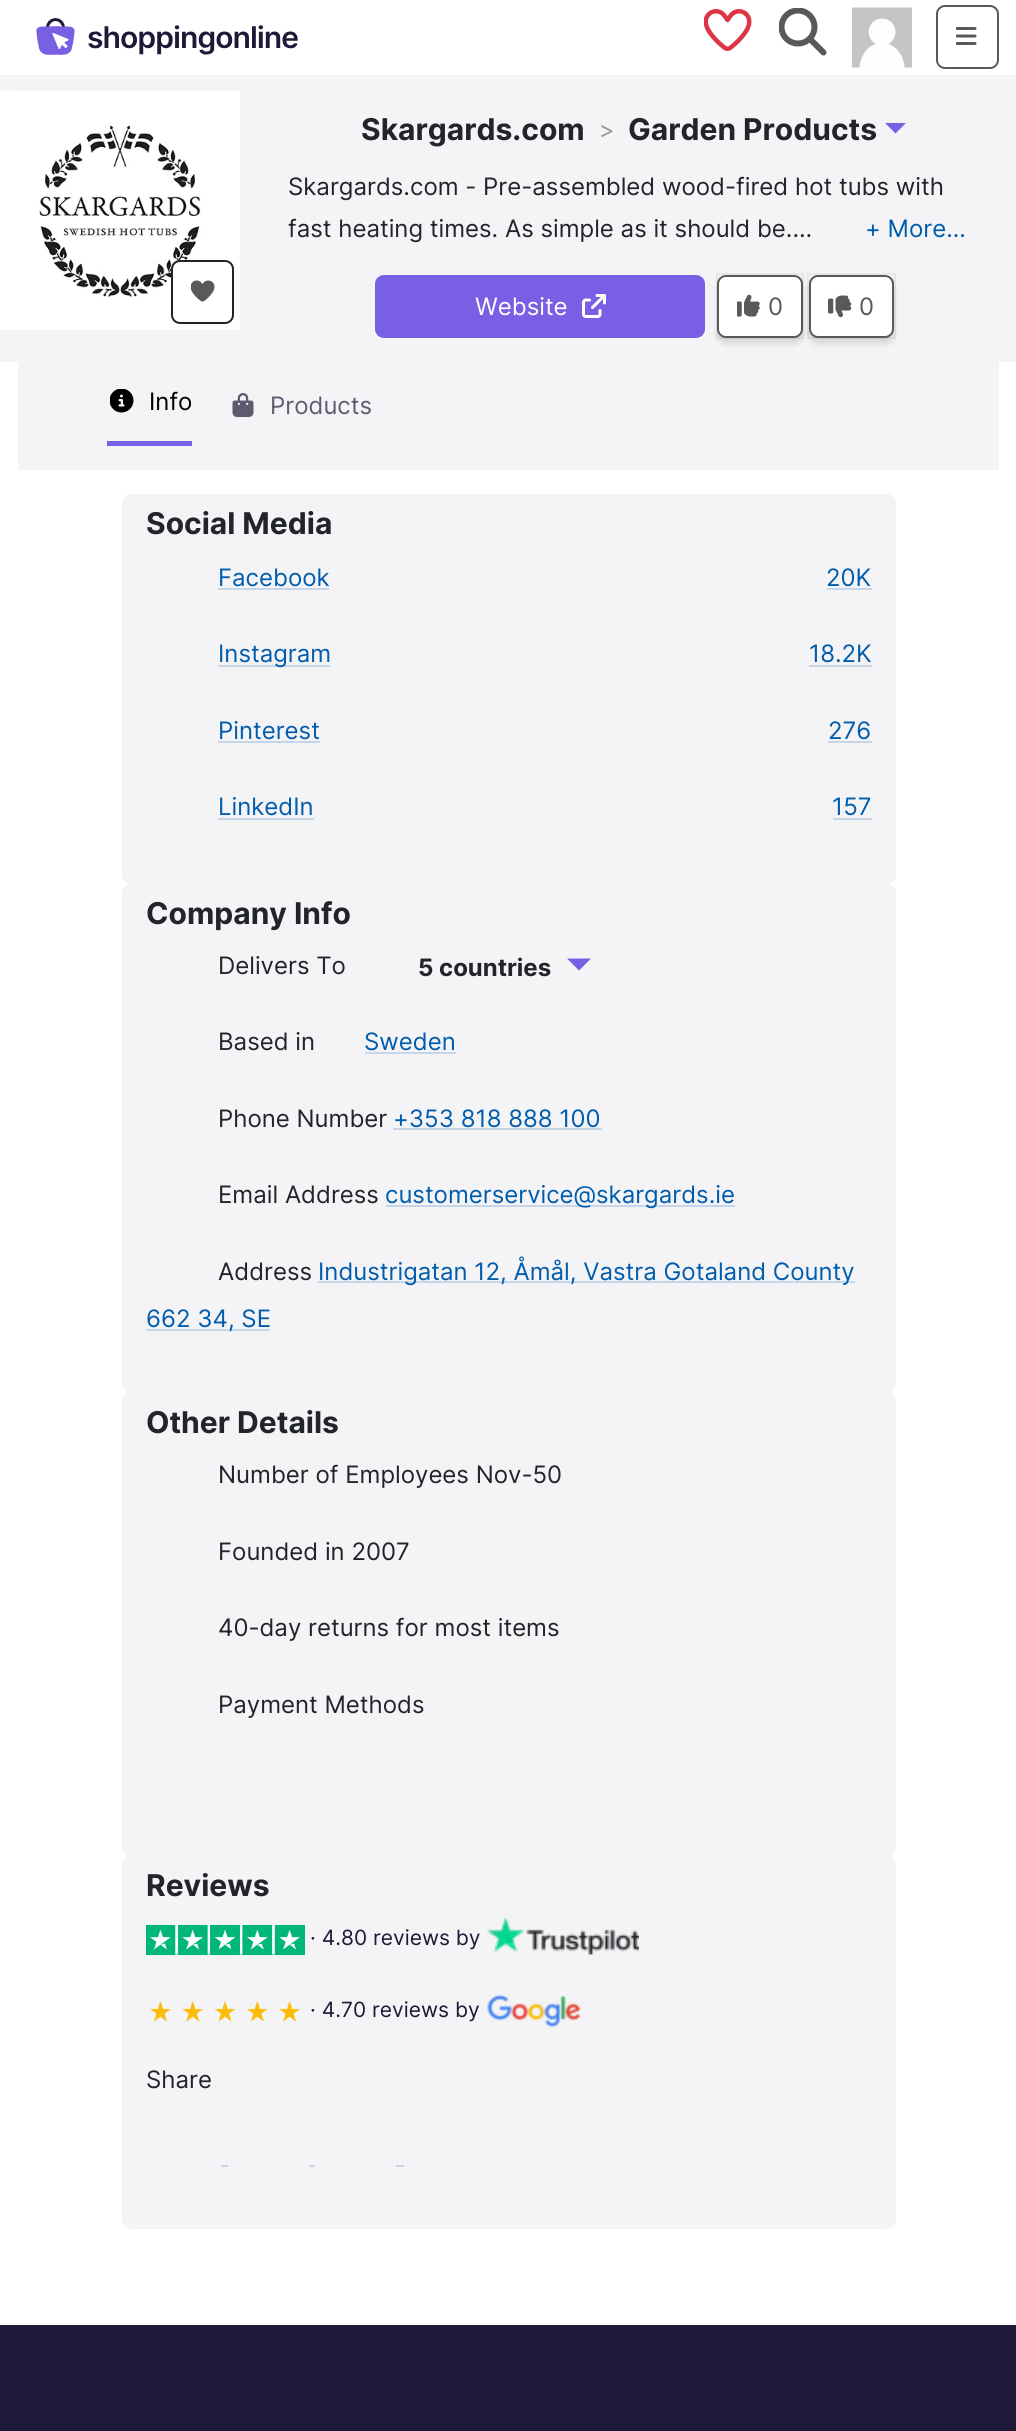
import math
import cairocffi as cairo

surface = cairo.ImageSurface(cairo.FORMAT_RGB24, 1016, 2431)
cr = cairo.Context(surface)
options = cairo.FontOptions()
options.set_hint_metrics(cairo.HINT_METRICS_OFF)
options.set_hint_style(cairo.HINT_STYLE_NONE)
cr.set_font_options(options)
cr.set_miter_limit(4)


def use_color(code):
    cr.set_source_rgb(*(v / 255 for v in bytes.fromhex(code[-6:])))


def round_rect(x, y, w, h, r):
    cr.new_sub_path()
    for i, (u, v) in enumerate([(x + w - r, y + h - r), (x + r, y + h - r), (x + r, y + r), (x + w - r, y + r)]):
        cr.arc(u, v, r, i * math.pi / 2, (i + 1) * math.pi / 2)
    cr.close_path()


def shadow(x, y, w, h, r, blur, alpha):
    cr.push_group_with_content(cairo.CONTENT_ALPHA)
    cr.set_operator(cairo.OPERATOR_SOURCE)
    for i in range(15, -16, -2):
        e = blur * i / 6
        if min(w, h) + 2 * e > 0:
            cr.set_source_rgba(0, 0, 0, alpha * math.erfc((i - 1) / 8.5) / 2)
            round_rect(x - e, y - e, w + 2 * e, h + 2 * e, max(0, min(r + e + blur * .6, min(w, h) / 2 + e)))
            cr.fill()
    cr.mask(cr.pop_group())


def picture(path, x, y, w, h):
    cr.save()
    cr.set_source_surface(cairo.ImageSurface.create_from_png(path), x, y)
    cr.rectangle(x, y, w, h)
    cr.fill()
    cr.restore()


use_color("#ffffff")
cr.paint()
picture("img1.png", 36, 18, 262, 37)
picture("img2.png", 704, 9, 48, 42)
picture("img3.png", 779, 8, 48, 48)
picture("img4.png", 852, 7, 60, 61)
round_rect(937, 6, 61, 62, 8)
use_color("#595959")
cr.stroke()
picture("img5.png", 956, 27, 21, 18)
use_color("#f4f3f6")
cr.rectangle(0, 75, 1016, 287)
cr.fill()
use_color("#ffffff")
cr.rectangle(0, 297, 240, 33)
cr.fill()
picture("img6.png", 0, 90, 240, 207)
round_rect(172, 261, 61, 62, 8)
cr.fill_preserve()
use_color("#212529")
cr.stroke()
picture("img7.png", 191, 280, 24, 22)
cr.select_font_face("Inter", cairo.FONT_SLANT_NORMAL, cairo.FONT_WEIGHT_BOLD)
cr.set_font_size(30)
cr.move_to(361, 140)
cr.show_text("Skargards.com")
cr.select_font_face("Inter")
cr.set_font_size(24)
use_color("#999999")
cr.move_to(599, 138)
cr.show_text(">")
cr.select_font_face("Inter", cairo.FONT_SLANT_NORMAL, cairo.FONT_WEIGHT_BOLD)
cr.set_font_size(30)
use_color("#212529")
cr.move_to(628, 140)
cr.show_text("Garden Products")
use_color("#795fe3")
cr.new_path()
cr.move_to(885, 123)
cr.line_to(906, 123)
cr.line_to(895.5, 133.5)
cr.close_path()
cr.fill()
cr.select_font_face("Inter")
cr.set_font_size(24)
use_color("#212529")
cr.move_to(288, 195)
cr.show_text("Skargards.com - Pre-assembled wood-fired hot tubs with")
cr.move_to(288, 237)
cr.show_text("fast heating times. As simple as it should be.…")
use_color("#005cac")
cr.move_to(865, 237)
cr.show_text("+ More...")
use_color("#795fe3")
round_rect(376, 276, 328, 61, 8)
cr.fill_preserve()
cr.stroke()
use_color("#ffffff")
cr.move_to(475, 315)
cr.show_text("Website")
picture("img8.png", 582, 294, 24, 24)
use_color("#000000")
shadow(717, 281, 86, 63, 9, 3, 0.12)
cr.rectangle(717, 274, 86, 64)
cr.set_source_rgba(0, 0, 0, 0.06)
cr.stroke()
use_color("#ffffff")
round_rect(718, 276, 84, 61, 8)
cr.fill_preserve()
use_color("#595959")
cr.stroke()
picture("img9.png", 737, 294, 23, 23)
cr.move_to(768, 315)
cr.show_text("0")
use_color("#000000")
shadow(809, 281, 85, 63, 9, 3, 0.12)
cr.rectangle(808, 274, 87, 64)
cr.set_source_rgba(0, 0, 0, 0.06)
cr.stroke()
use_color("#ffffff")
round_rect(810, 276, 83, 61, 8)
cr.fill_preserve()
use_color("#595959")
cr.stroke()
picture("img10.png", 828, 295, 24, 23)
cr.move_to(859, 315)
cr.show_text("0")
use_color("#f4f3f6")
cr.rectangle(18, 362, 981, 108)
cr.fill()
use_color("#795fe3")
cr.rectangle(107, 441, 85, 5)
cr.fill()
picture("img11.png", 110, 389, 24, 24)
use_color("#000000")
cr.move_to(149, 410)
cr.show_text("Info")
picture("img12.png", 232, 393, 22, 24)
use_color("#5e5b71")
cr.move_to(270, 414)
cr.show_text("Products")
use_color("#f4f3f6")
round_rect(122, 494, 774, 390, 9)
cr.fill()
cr.select_font_face("Inter", cairo.FONT_SLANT_NORMAL, cairo.FONT_WEIGHT_BOLD)
cr.set_font_size(30)
use_color("#212529")
cr.move_to(146, 534)
cr.show_text("Social Media")
cr.select_font_face("Inter")
cr.set_font_size(24)
use_color("#005cac")
cr.move_to(218, 586)
cr.show_text("Facebook")
use_color("#c6d6e8")
cr.rectangle(218, 588, 111, 2)
cr.fill()
use_color("#005cac")
cr.move_to(826, 586)
cr.show_text("20K")
use_color("#c6d6e8")
cr.rectangle(827, 588, 45, 2)
cr.fill()
cr.rectangle(218, 665, 112, 2)
cr.fill()
use_color("#005cac")
cr.move_to(218, 662)
cr.show_text("Instagram")
cr.move_to(809, 662)
cr.show_text("18.2K")
use_color("#c6d6e8")
cr.rectangle(809, 665, 63, 2)
cr.fill()
use_color("#005cac")
cr.move_to(218, 739)
cr.show_text("Pinterest")
use_color("#c6d6e8")
cr.rectangle(218, 741, 102, 2)
cr.fill()
use_color("#005cac")
cr.move_to(828, 739)
cr.show_text("276")
use_color("#c6d6e8")
cr.rectangle(828, 741, 44, 2)
cr.fill()
use_color("#005cac")
cr.move_to(218, 815)
cr.show_text("LinkedIn")
use_color("#c6d6e8")
cr.rectangle(218, 818, 96, 2)
cr.fill()
use_color("#005cac")
cr.move_to(832, 815)
cr.show_text("157")
use_color("#c6d6e8")
cr.rectangle(833, 818, 39, 2)
cr.fill()
use_color("#f4f3f6")
round_rect(122, 884, 774, 508, 9)
cr.fill()
cr.select_font_face("Inter", cairo.FONT_SLANT_NORMAL, cairo.FONT_WEIGHT_BOLD)
cr.set_font_size(30)
use_color("#212529")
cr.move_to(146, 924)
cr.show_text("Company Info")
cr.select_font_face("Inter")
cr.set_font_size(24)
cr.move_to(218, 974)
cr.show_text("Delivers To")
cr.select_font_face("Inter", cairo.FONT_SLANT_NORMAL, cairo.FONT_WEIGHT_BOLD)
cr.move_to(418, 976)
cr.show_text("5 countries")
use_color("#795fe3")
cr.new_path()
cr.move_to(567, 958.5)
cr.line_to(591, 958.5)
cr.line_to(579, 970.5)
cr.close_path()
cr.fill()
cr.select_font_face("Inter")
use_color("#212529")
cr.move_to(218, 1050)
cr.show_text("Based in")
use_color("#005cac")
cr.move_to(364, 1050)
cr.show_text("Sweden")
use_color("#c6d6e8")
cr.rectangle(365, 1052, 91, 2)
cr.fill()
use_color("#212529")
cr.move_to(218, 1127)
cr.show_text("Phone Number")
use_color("#005cac")
cr.move_to(393, 1127)
cr.show_text("+353 818 888 100")
use_color("#c6d6e8")
cr.rectangle(393, 1128, 209, 2)
cr.fill()
use_color("#212529")
cr.move_to(218, 1203)
cr.show_text("Email Address")
use_color("#c6d6e8")
cr.rectangle(386, 1205, 349, 2)
cr.fill()
use_color("#005cac")
cr.move_to(385, 1203)
cr.show_text("customerservice@skargards.ie")
use_color("#212529")
cr.move_to(218, 1280)
cr.show_text("Address")
use_color("#c6d6e8")
cr.rectangle(318, 1281, 537, 2)
cr.fill()
use_color("#005cac")
cr.move_to(318, 1280)
cr.show_text("Industrigatan 12, Åmål, Vastra Gotaland County")
use_color("#c6d6e8")
cr.rectangle(146, 1329, 124, 2)
cr.fill()
use_color("#005cac")
cr.move_to(146, 1327)
cr.show_text("662 34, SE")
use_color("#f4f3f6")
round_rect(122, 1392, 774, 464, 9)
cr.fill()
cr.select_font_face("Inter", cairo.FONT_SLANT_NORMAL, cairo.FONT_WEIGHT_BOLD)
cr.set_font_size(30)
use_color("#212529")
cr.move_to(146, 1433)
cr.show_text("Other Details")
cr.select_font_face("Inter")
cr.set_font_size(24)
cr.move_to(218, 1483)
cr.show_text("Number of Employees Nov-50")
cr.move_to(218, 1560)
cr.show_text("Founded in 2007")
cr.move_to(218, 1636)
cr.show_text("40-day returns for most items")
cr.move_to(218, 1713)
cr.show_text("Payment Methods")
use_color("#f4f3f6")
round_rect(122, 1856, 774, 373, 9)
cr.fill()
cr.select_font_face("Inter", cairo.FONT_SLANT_NORMAL, cairo.FONT_WEIGHT_BOLD)
cr.set_font_size(30)
use_color("#212529")
cr.move_to(146, 1896)
cr.show_text("Reviews")
use_color("#00b67a")
cr.rectangle(146, 1925, 159, 30)
cr.fill()
picture("img13.png", 150, 1924, 150, 31)
cr.select_font_face("Inter")
cr.set_font_size(21)
use_color("#1e1938")
cr.move_to(310, 1945)
cr.show_text("· 4.80 reviews by")
picture("img14.png", 487, 1917, 152, 38)
picture("img15.png", 150, 2001, 150, 21)
cr.move_to(310, 2017)
cr.show_text("· 4.70 reviews by")
picture("img16.png", 487, 1994, 94, 33)
cr.set_font_size(24)
use_color("#212529")
cr.move_to(146, 2088)
cr.show_text("Share")
use_color("#c6d6e8")
cr.rectangle(221, 2165, 7, 2)
cr.fill()
cr.rectangle(309, 2165, 6, 2)
cr.fill()
cr.rectangle(396, 2165, 8, 2)
cr.fill()
use_color("#1e1938")
cr.rectangle(0, 2325, 1016, 106)
cr.fill()
surface.write_to_png("result.png")
